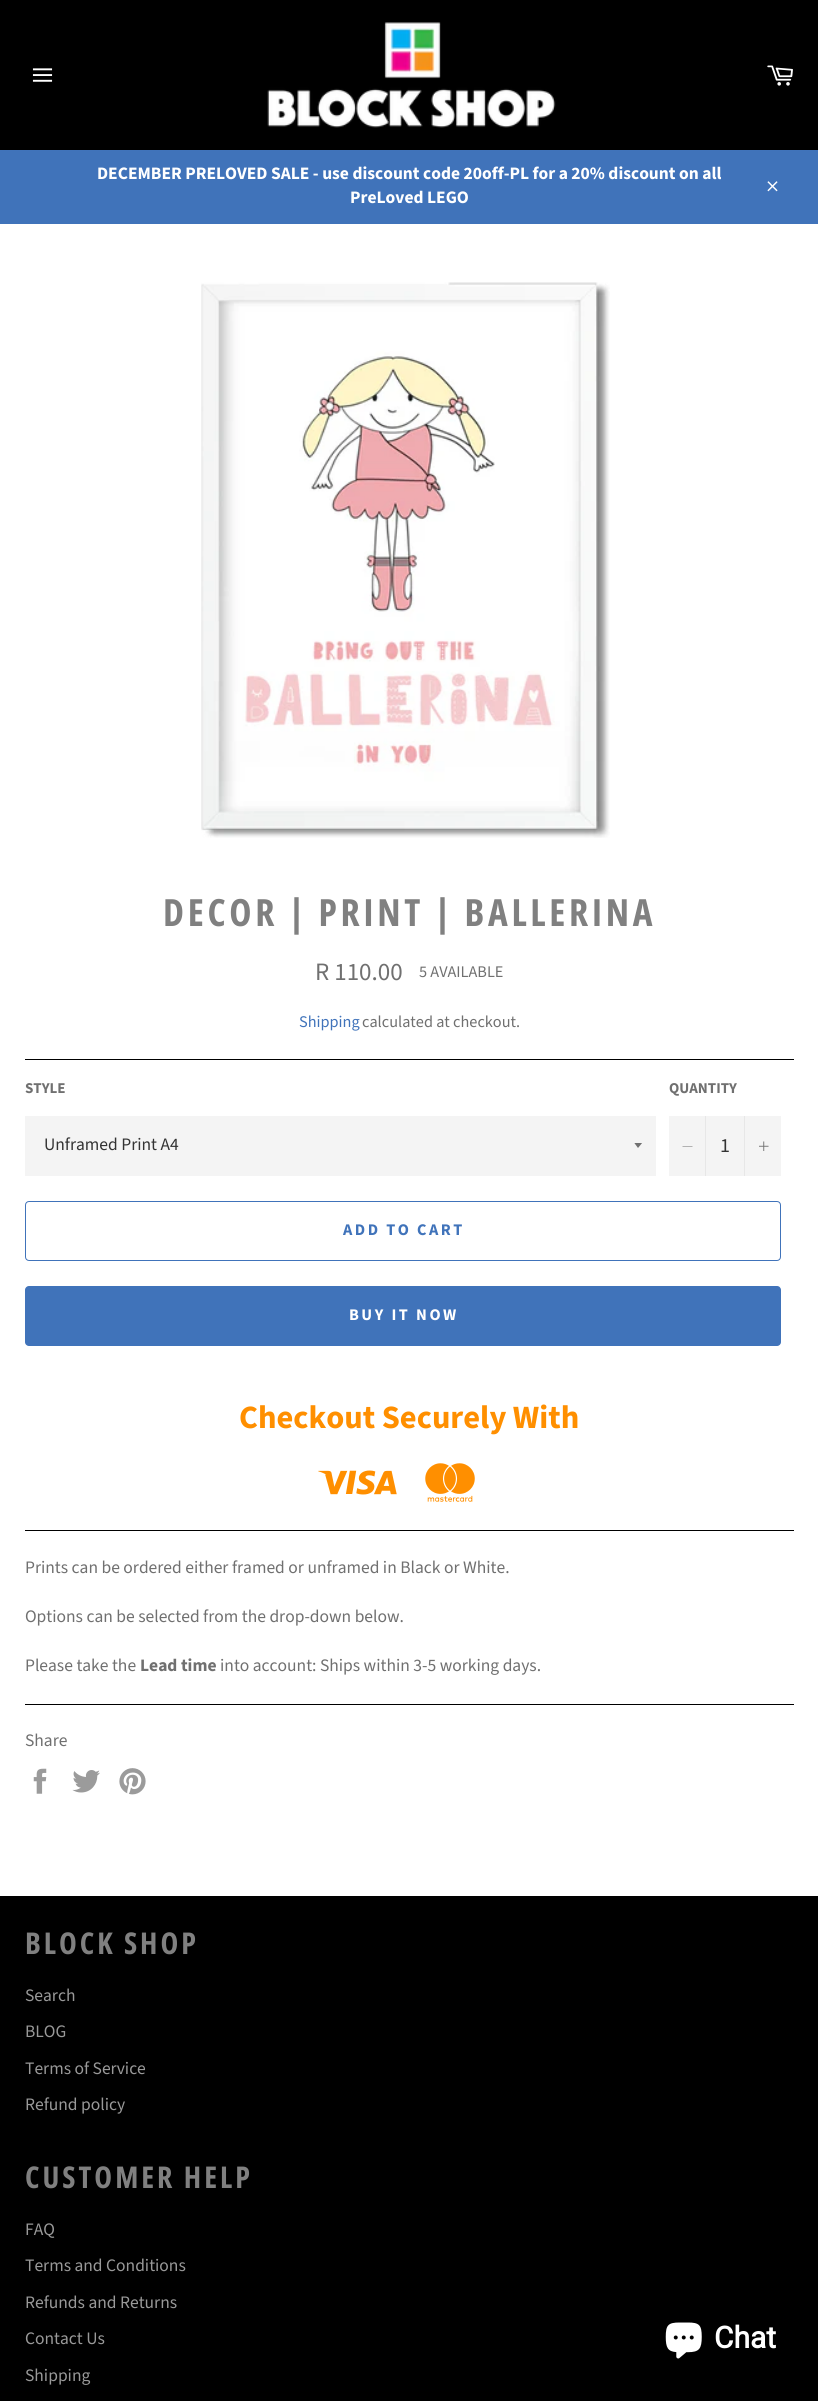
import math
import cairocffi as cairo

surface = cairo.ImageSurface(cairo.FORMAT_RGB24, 818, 2401)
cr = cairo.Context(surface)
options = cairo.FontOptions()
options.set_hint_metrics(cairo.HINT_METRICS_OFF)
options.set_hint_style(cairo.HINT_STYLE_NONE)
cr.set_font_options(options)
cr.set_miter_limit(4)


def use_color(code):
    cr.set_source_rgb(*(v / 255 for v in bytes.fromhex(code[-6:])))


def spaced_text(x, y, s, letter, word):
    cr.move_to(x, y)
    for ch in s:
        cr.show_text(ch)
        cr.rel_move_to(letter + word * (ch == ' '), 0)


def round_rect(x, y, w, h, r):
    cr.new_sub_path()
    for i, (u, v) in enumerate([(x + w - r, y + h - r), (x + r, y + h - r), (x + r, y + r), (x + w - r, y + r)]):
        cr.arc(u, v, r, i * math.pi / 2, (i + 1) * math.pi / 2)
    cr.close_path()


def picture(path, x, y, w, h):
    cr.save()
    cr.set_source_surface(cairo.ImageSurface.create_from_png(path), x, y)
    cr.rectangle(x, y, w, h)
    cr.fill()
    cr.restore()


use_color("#000000")
cr.paint()
picture("img1.png", 32, 68, 21, 14)
picture("img2.png", 267, 22, 289, 106)
picture("img3.png", 767, 65, 26, 21)
use_color("#4073ba")
cr.rectangle(0, 150, 818, 74)
cr.fill()
cr.select_font_face("Source Sans Pro", cairo.FONT_SLANT_NORMAL, cairo.FONT_WEIGHT_BOLD)
cr.set_font_size(17.5)
use_color("#ffffff")
cr.move_to(97, 179)
cr.show_text("DECEMBER PRELOVED SALE - use discount code 20off-PL for a 20% discount on all")
cr.move_to(350, 203)
cr.show_text("PreLoved LEGO")
picture("img4.png", 767, 181, 11, 11)
cr.rectangle(0, 224, 818, 1672)
cr.fill()
picture("img5.png", 201, 282, 409, 556)
cr.select_font_face("Open Sans Condensed", cairo.FONT_SLANT_NORMAL, cairo.FONT_WEIGHT_BOLD)
cr.set_font_size(37.5)
use_color("#808080")
spaced_text(163, 926, "DECOR | PRINT | BALLERINA", 3.75, 0)
cr.select_font_face("Source Sans Pro")
cr.set_font_size(25)
use_color("#707070")
cr.move_to(315, 980)
cr.show_text("R 110.00")
cr.set_font_size(16.25)
cr.move_to(419, 977)
cr.show_text("5 AVAILABLE")
use_color("#4073ba")
cr.move_to(299, 1027)
cr.show_text("Shipping")
use_color("#707070")
cr.move_to(362, 1027)
cr.show_text("calculated at checkout.")
use_color("#000000")
cr.rectangle(25, 1059, 769, 1)
cr.fill()
cr.select_font_face("Source Sans Pro", cairo.FONT_SLANT_NORMAL, cairo.FONT_WEIGHT_BOLD)
cr.set_font_size(15)
use_color("#707070")
cr.move_to(25, 1093)
cr.show_text("STYLE")
use_color("#f4f4f4")
cr.rectangle(25, 1116, 631, 60)
cr.fill()
cr.save()
cr.rectangle(634, 1143, 10, 6)
cr.clip()
use_color("#707070")
cr.new_path()
cr.move_to(634, 1142.5)
cr.line_to(638, 1148)
cr.line_to(642.5, 1142.5)
cr.close_path()
cr.fill()
cr.restore()
cr.select_font_face("Source Sans Pro")
cr.set_font_size(17.5)
use_color("#333333")
cr.move_to(44, 1150)
cr.show_text("Unframed Print A4")
cr.select_font_face("Source Sans Pro", cairo.FONT_SLANT_NORMAL, cairo.FONT_WEIGHT_BOLD)
cr.set_font_size(15)
use_color("#707070")
cr.move_to(669, 1093)
cr.show_text("QUANTITY")
use_color("#f4f4f4")
cr.rectangle(669, 1116, 112, 60)
cr.fill()
use_color("#e7e7e7")
cr.rectangle(705, 1116, 1, 60)
cr.fill()
use_color("#707070")
cr.set_fill_rule(cairo.FILL_RULE_EVEN_ODD)
cr.new_path()
cr.move_to(692.5, 1146)
cr.line_to(692.5, 1146.5)
cr.line_to(682.5, 1146.5)
cr.line_to(682.5, 1146)
cr.close_path()
cr.fill()
cr.select_font_face("Source Sans Pro")
cr.set_font_size(20)
use_color("#333333")
cr.move_to(720, 1152)
cr.show_text("1")
use_color("#e7e7e7")
cr.rectangle(744, 1116, 1, 60)
cr.fill()
picture("img6.png", 759, 1141, 10, 10)
round_rect(25.5, 1201.5, 755, 59, 3.5)
use_color("#4073ba")
cr.set_line_width(1)
cr.stroke()
cr.select_font_face("Source Sans Pro", cairo.FONT_SLANT_NORMAL, cairo.FONT_WEIGHT_BOLD)
cr.set_font_size(16.25)
spaced_text(343, 1235, "ADD TO CART", 2.5, 0)
round_rect(25, 1286, 756, 60, 4)
cr.fill()
use_color("#ffffff")
spaced_text(349, 1320, "BUY IT NOW", 2.5, 0)
cr.set_font_size(32.5)
use_color("#ff8f00")
cr.move_to(239, 1428)
cr.show_text("Checkout Securely With")
picture("img7.png", 318, 1470, 79, 25)
picture("img8.png", 425, 1463, 50, 39)
use_color("#000000")
cr.rectangle(25, 1530, 769, 1)
cr.fill()
cr.select_font_face("Source Sans Pro")
cr.set_font_size(17.5)
use_color("#707070")
cr.move_to(25, 1573)
cr.show_text("Prints can be ordered either framed or unframed in Black or White.")
cr.move_to(25, 1622)
cr.show_text("Options can be selected from the drop-down below.")
cr.move_to(25, 1671)
cr.show_text("Please take the")
cr.select_font_face("Source Sans Pro", cairo.FONT_SLANT_NORMAL, cairo.FONT_WEIGHT_BOLD)
cr.move_to(140, 1671)
cr.show_text("Lead time")
cr.select_font_face("Source Sans Pro")
cr.move_to(220, 1671)
cr.show_text("into account: Ships within 3-5 working days.")
use_color("#000000")
cr.rectangle(25, 1704, 769, 1)
cr.fill()
use_color("#707070")
cr.move_to(25, 1746)
cr.show_text("Share")
picture("img9.png", 33, 1768, 14, 26)
picture("img10.png", 72, 1770, 28, 23)
picture("img11.png", 119, 1768, 27, 27)
cr.select_font_face("Open Sans Condensed", cairo.FONT_SLANT_NORMAL, cairo.FONT_WEIGHT_BOLD)
cr.set_font_size(30)
use_color("#808080")
spaced_text(25, 1954, "BLOCK SHOP", 3, 0)
cr.select_font_face("Source Sans Pro")
cr.set_font_size(17.5)
use_color("#999999")
cr.move_to(25, 2001)
cr.show_text("Search")
cr.move_to(25, 2037)
cr.show_text("BLOG")
cr.move_to(25, 2074)
cr.show_text("Terms of Service")
cr.move_to(25, 2110)
cr.show_text("Refund policy")
cr.select_font_face("Open Sans Condensed", cairo.FONT_SLANT_NORMAL, cairo.FONT_WEIGHT_BOLD)
cr.set_font_size(30)
use_color("#808080")
spaced_text(25, 2188, "CUSTOMER HELP", 3, 0)
cr.select_font_face("Source Sans Pro")
cr.set_font_size(17.5)
use_color("#999999")
cr.move_to(25, 2235)
cr.show_text("FAQ")
cr.move_to(25, 2271)
cr.show_text("Terms and Conditions")
cr.move_to(25, 2308)
cr.show_text("Refunds and Returns")
cr.move_to(25, 2344)
cr.show_text("Contact Us")
cr.move_to(25, 2381)
cr.show_text("Shipping")
picture("img12.png", 665, 2322, 37, 37)
cr.select_font_face("Roboto", cairo.FONT_SLANT_NORMAL, cairo.FONT_WEIGHT_BOLD)
cr.set_font_size(30)
use_color("#ffffff")
cr.move_to(714, 2348)
cr.show_text("Chat")
surface.write_to_png("result.png")
